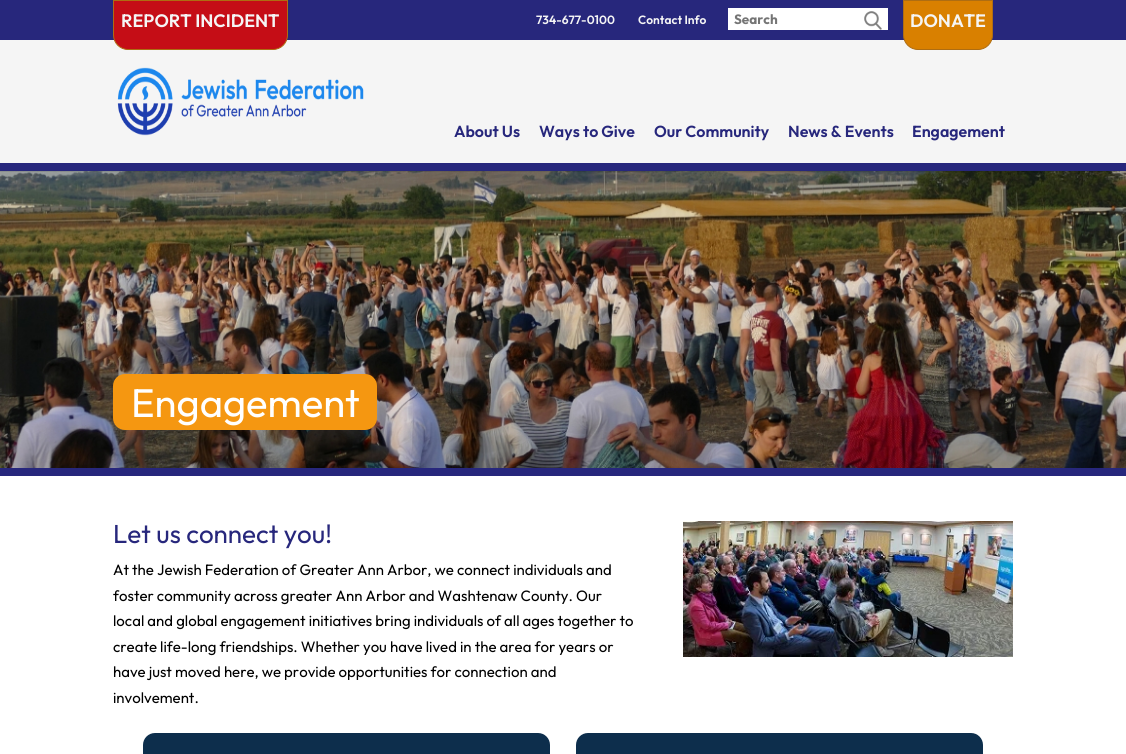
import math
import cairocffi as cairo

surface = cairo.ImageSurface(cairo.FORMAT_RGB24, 1126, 754)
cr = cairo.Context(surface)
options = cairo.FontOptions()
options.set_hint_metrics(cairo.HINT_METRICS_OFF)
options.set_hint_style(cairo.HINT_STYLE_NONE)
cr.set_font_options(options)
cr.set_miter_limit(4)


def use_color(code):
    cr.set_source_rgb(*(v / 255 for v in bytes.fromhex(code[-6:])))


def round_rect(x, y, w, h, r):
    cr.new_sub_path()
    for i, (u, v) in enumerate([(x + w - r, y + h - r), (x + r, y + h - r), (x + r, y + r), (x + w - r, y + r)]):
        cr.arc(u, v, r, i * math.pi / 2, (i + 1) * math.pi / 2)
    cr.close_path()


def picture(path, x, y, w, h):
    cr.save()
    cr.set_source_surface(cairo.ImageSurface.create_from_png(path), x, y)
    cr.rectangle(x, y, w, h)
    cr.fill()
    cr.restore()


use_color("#27277c")
cr.paint()
use_color("#f5f5f5")
cr.rectangle(0, 40, 1126, 123)
cr.fill()
use_color("#c50d16")
cr.new_path()
cr.move_to(113.5, 0.5)
cr.line_to(287.5, 0.5)
cr.line_to(287.5, 35)
cr.curve_to(287.5, 43, 281, 49.5, 273, 49.5)
cr.line_to(128, 49.5)
cr.curve_to(120, 49.5, 113.5, 43, 113.5, 35)
cr.close_path()
cr.fill_preserve()
use_color("#ae6d12")
cr.set_line_width(1)
cr.stroke()
cr.select_font_face("Outfit Thin")
cr.set_font_size(18)
use_color("#f5f5f5")
cr.move_to(121, 27)
cr.show_text("REPORT INCIDENT")
cr.set_font_size(12)
cr.move_to(536, 24)
cr.show_text("734-677-0100")
cr.move_to(638, 24)
cr.show_text("Contact Info")
use_color("#ffffff")
cr.rectangle(728, 8, 160, 22)
cr.fill()
picture("img1.png", 864, 11, 18, 19)
cr.select_font_face("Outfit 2 Thin")
cr.set_font_size(13.5)
use_color("#757575")
cr.move_to(734, 24)
cr.show_text("Search")
use_color("#d98000")
cr.new_path()
cr.move_to(903.5, 0.5)
cr.line_to(992.5, 0.5)
cr.line_to(992.5, 35)
cr.curve_to(992.5, 43, 986, 49.5, 978, 49.5)
cr.line_to(918, 49.5)
cr.curve_to(910, 49.5, 903.5, 43, 903.5, 35)
cr.close_path()
cr.fill_preserve()
use_color("#ae6d12")
cr.stroke()
cr.select_font_face("Outfit Thin")
cr.set_font_size(18)
use_color("#f5f5f5")
cr.move_to(910, 27)
cr.show_text("DONATE")
picture("img3.png", 0, 171, 1126, 297)
cr.set_source_rgba(0, 0, 0, 0.1)
cr.rectangle(0, 171, 1126, 1)
cr.fill()
picture("img2.png", 117, 67, 247, 69)
cr.set_font_size(16)
use_color("#27277c")
cr.move_to(454, 137)
cr.show_text("About Us")
cr.move_to(539, 137)
cr.show_text("Ways to Give")
cr.move_to(654, 137)
cr.show_text("Our Community")
cr.move_to(788, 137)
cr.show_text("News & Events")
cr.move_to(912, 137)
cr.show_text("Engagement")
use_color("#f59711")
round_rect(113, 374, 264, 56, 12)
cr.fill()
cr.select_font_face("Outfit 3 Thin")
cr.set_font_size(40)
use_color("#ffffff")
cr.move_to(131, 417)
cr.show_text("Engagement")
cr.rectangle(0, 476, 1126, 278)
cr.fill()
cr.set_font_size(26)
use_color("#27277c")
cr.move_to(113, 543)
cr.show_text("Let us connect you!")
cr.set_font_size(15)
use_color("#000000")
cr.move_to(113, 575)
cr.show_text("At the Jewish Federation of Greater Ann Arbor, we connect individuals and")
cr.move_to(113, 601)
cr.show_text("foster community across greater Ann Arbor and Washtenaw County. Our")
cr.move_to(113, 626)
cr.show_text("local and global engagement initiatives bring individuals of all ages together to")
cr.move_to(113, 652)
cr.show_text("create life-long friendships. Whether you have lived in the area for years or")
cr.move_to(113, 677)
cr.show_text("have just moved here, we provide opportunities for connection and")
cr.move_to(113, 703)
cr.show_text("involvement.")
picture("img4.png", 683, 521, 330, 136)
use_color("#0d2e4c")
round_rect(143, 733, 407, 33, 12)
cr.fill()
round_rect(576, 733, 407, 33, 12)
cr.fill()
surface.write_to_png("result.png")
